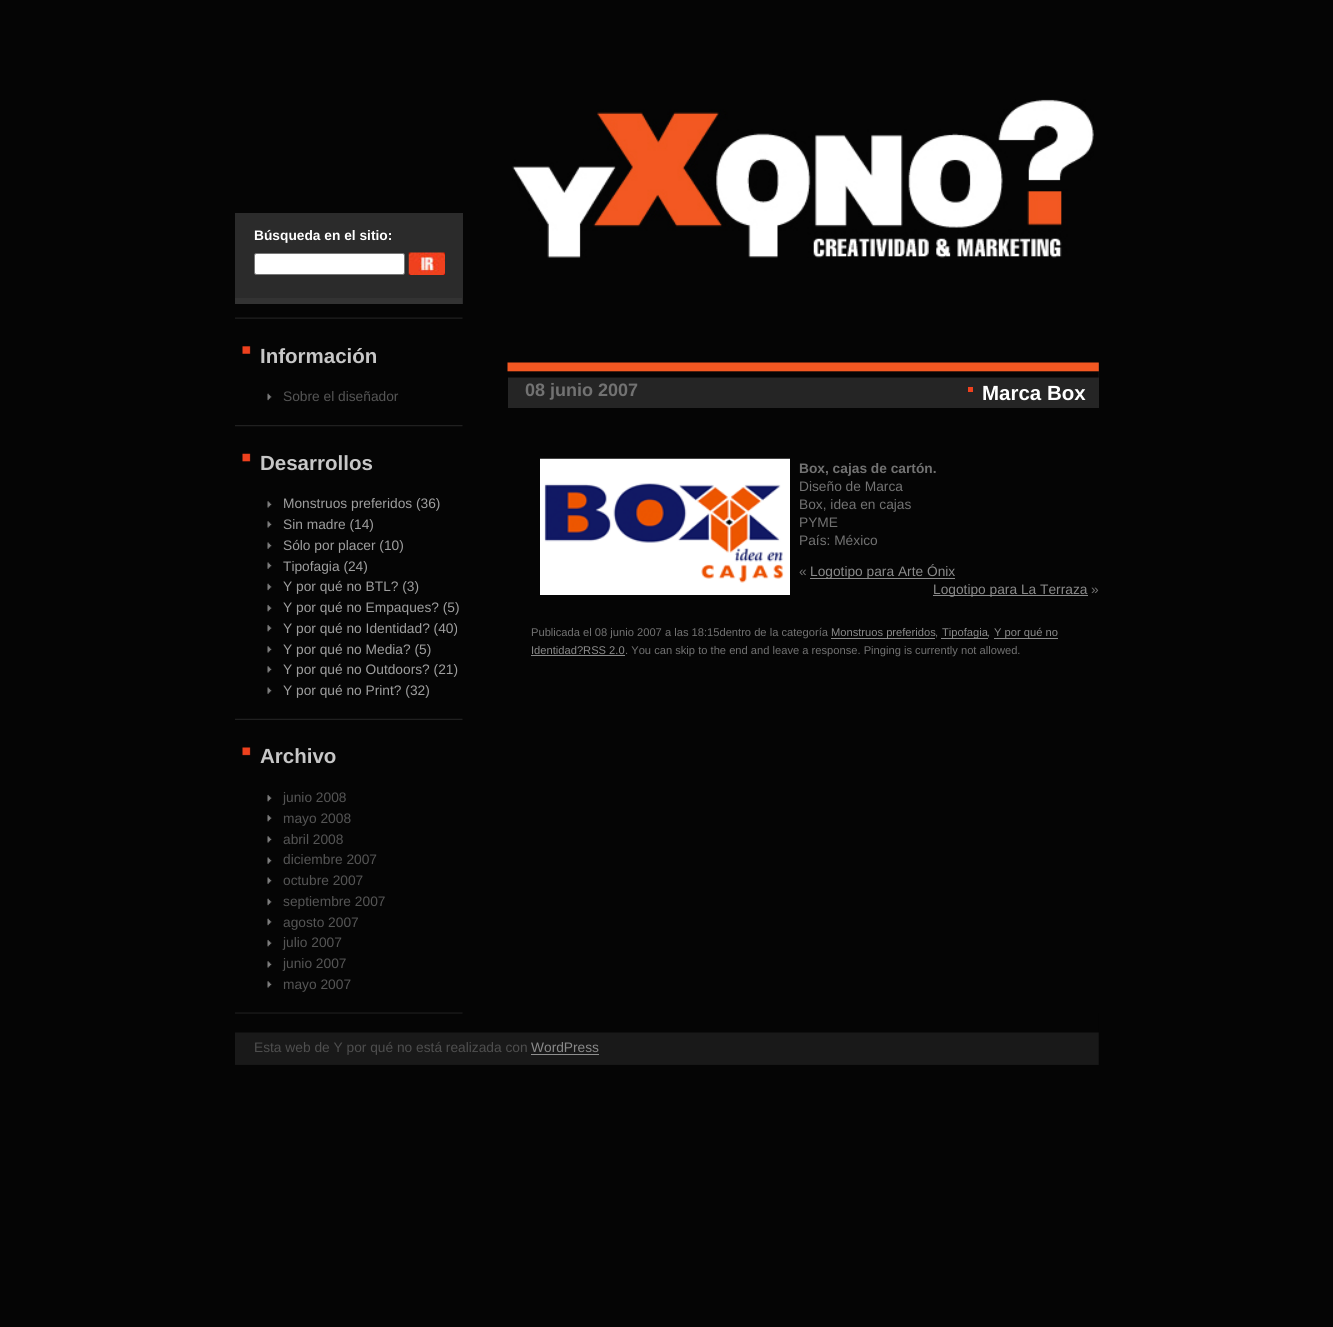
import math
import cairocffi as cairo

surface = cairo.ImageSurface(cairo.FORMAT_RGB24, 1333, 1327)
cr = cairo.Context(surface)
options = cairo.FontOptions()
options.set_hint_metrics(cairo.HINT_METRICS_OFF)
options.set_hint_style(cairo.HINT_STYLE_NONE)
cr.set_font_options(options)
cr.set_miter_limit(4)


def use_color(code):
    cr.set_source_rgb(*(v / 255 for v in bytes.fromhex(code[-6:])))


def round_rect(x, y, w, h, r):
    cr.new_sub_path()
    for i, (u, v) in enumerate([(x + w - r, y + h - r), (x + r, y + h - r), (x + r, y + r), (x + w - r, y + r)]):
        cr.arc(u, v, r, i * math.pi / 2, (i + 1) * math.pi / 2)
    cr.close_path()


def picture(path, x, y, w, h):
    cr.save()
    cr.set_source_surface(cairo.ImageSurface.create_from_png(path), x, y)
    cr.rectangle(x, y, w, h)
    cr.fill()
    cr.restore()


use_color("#050505")
cr.paint()
picture("img1.png", 512, 99, 582, 159)
use_color("#2b2b2b")
cr.rectangle(235, 213, 228, 91)
cr.fill()
use_color("#333333")
cr.rectangle(235, 298, 227, 6)
cr.fill()
cr.select_font_face("Liberation Sans", cairo.FONT_SLANT_NORMAL, cairo.FONT_WEIGHT_BOLD)
cr.set_font_size(13.75)
use_color("#ffffff")
cr.move_to(254, 240)
cr.show_text("Búsqueda en el sitio:")
round_rect(254.5, 253.5, 150, 21, 2)
cr.fill_preserve()
use_color("#767676")
cr.set_line_width(1)
cr.stroke()
picture("img2.png", 408, 252, 37, 23)
picture("img3.png", 235, 317, 228, 2)
picture("img4.png", 235, 425, 228, 2)
picture("img5.png", 242, 346, 9, 8)
cr.set_font_size(20.5)
use_color("#c7c7c7")
cr.move_to(260, 363)
cr.show_text("Información")
picture("img6.png", 267, 393, 5, 8)
cr.select_font_face("Liberation Sans")
cr.set_font_size(13.75)
use_color("#555555")
cr.move_to(283, 401)
cr.show_text("Sobre el diseñador")
picture("img7.png", 235, 718, 228, 2)
picture("img8.png", 242, 453, 9, 9)
cr.select_font_face("Liberation Sans", cairo.FONT_SLANT_NORMAL, cairo.FONT_WEIGHT_BOLD)
cr.set_font_size(20.5)
use_color("#c7c7c7")
cr.move_to(260, 470)
cr.show_text("Desarrollos")
picture("img9.png", 267, 501, 5, 7)
cr.select_font_face("Liberation Sans")
cr.set_font_size(13.75)
use_color("#9f9f9f")
cr.move_to(283, 508)
cr.show_text("Monstruos preferidos (36)")
picture("img9.png", 267, 521, 5, 7)
cr.move_to(283, 529)
cr.show_text("Sin madre (14)")
picture("img10.png", 267, 542, 5, 7)
cr.move_to(283, 550)
cr.show_text("Sólo por placer (10)")
picture("img10.png", 267, 562, 5, 7)
cr.move_to(283, 571)
cr.show_text("Tipofagia (24)")
picture("img6.png", 267, 583, 5, 8)
cr.move_to(283, 591)
cr.show_text("Y por qué no BTL? (3)")
picture("img11.png", 267, 604, 5, 8)
cr.move_to(283, 612)
cr.show_text("Y por qué no Empaques? (5)")
picture("img11.png", 267, 624, 5, 8)
cr.move_to(283, 633)
cr.show_text("Y por qué no Identidad? (40)")
picture("img9.png", 267, 646, 5, 7)
cr.move_to(283, 654)
cr.show_text("Y por qué no Media? (5)")
picture("img9.png", 267, 666, 5, 7)
cr.move_to(283, 674)
cr.show_text("Y por qué no Outdoors? (21)")
picture("img10.png", 267, 687, 5, 7)
cr.move_to(283, 695)
cr.show_text("Y por qué no Print? (32)")
picture("img3.png", 235, 1012, 228, 2)
picture("img12.png", 242, 747, 9, 9)
cr.select_font_face("Liberation Sans", cairo.FONT_SLANT_NORMAL, cairo.FONT_WEIGHT_BOLD)
cr.set_font_size(20.5)
use_color("#c7c7c7")
cr.move_to(260, 763)
cr.show_text("Archivo")
picture("img11.png", 267, 794, 5, 8)
cr.select_font_face("Liberation Sans")
cr.set_font_size(13.75)
use_color("#555555")
cr.move_to(283, 802)
cr.show_text("junio 2008")
picture("img11.png", 267, 814, 5, 8)
cr.move_to(283, 823)
cr.show_text("mayo 2008")
picture("img9.png", 267, 836, 5, 7)
cr.move_to(283, 844)
cr.show_text("abril 2008")
picture("img10.png", 267, 857, 5, 7)
cr.move_to(283, 864)
cr.show_text("diciembre 2007")
picture("img10.png", 267, 877, 5, 7)
cr.move_to(283, 885)
cr.show_text("octubre 2007")
picture("img6.png", 267, 898, 5, 8)
cr.move_to(283, 906)
cr.show_text("septiembre 2007")
picture("img6.png", 267, 918, 5, 8)
cr.move_to(283, 927)
cr.show_text("agosto 2007")
picture("img11.png", 267, 939, 5, 8)
cr.move_to(283, 947)
cr.show_text("julio 2007")
picture("img9.png", 267, 961, 5, 7)
cr.move_to(283, 968)
cr.show_text("junio 2007")
picture("img9.png", 267, 981, 5, 7)
cr.move_to(283, 989)
cr.show_text("mayo 2007")
use_color("#252525")
cr.rectangle(508, 363, 591, 45)
cr.fill()
picture("img13.png", 507, 362, 592, 16)
cr.select_font_face("Liberation Sans", cairo.FONT_SLANT_NORMAL, cairo.FONT_WEIGHT_BOLD)
cr.set_font_size(18)
use_color("#727272")
cr.move_to(525, 396)
cr.show_text("08 junio 2007")
use_color("#ef411e")
cr.rectangle(968, 387, 5, 5)
cr.fill()
cr.set_font_size(20.5)
use_color("#ffffff")
cr.move_to(982, 400)
cr.show_text("Marca Box")
picture("img14.png", 540, 458, 250, 137)
cr.set_font_size(13.75)
use_color("#727272")
cr.move_to(799, 473)
cr.show_text("Box, cajas de cartón.")
cr.select_font_face("Liberation Sans")
cr.move_to(799, 491)
cr.show_text("Diseño de Marca")
cr.move_to(799, 509)
cr.show_text("Box, idea en cajas")
cr.move_to(799, 527)
cr.show_text("PYME")
cr.move_to(799, 545)
cr.show_text("País: México")
cr.move_to(799, 576)
cr.show_text("«")
use_color("#8a8a8a")
cr.rectangle(810, 578, 145, 1)
cr.fill()
cr.move_to(810, 576)
cr.show_text("Logotipo para Arte Ónix")
cr.rectangle(933, 595, 155, 1)
cr.fill()
cr.move_to(933, 594)
cr.show_text("Logotipo para La Terraza")
use_color("#727272")
cr.move_to(1091, 594)
cr.show_text("»")
cr.set_font_size(11.15)
cr.move_to(531, 636)
cr.show_text("Publicada el 08 junio 2007 a las 18:15dentro de la categoría")
use_color("#8a8a8a")
cr.rectangle(831, 638, 104, 1)
cr.fill()
cr.move_to(831, 636)
cr.show_text("Monstruos preferidos")
use_color("#727272")
cr.move_to(935, 636)
cr.show_text(",")
use_color("#8a8a8a")
cr.rectangle(941, 638, 47, 1)
cr.fill()
cr.move_to(942, 636)
cr.show_text("Tipofagia")
use_color("#727272")
cr.move_to(987, 636)
cr.show_text(",")
use_color("#8a8a8a")
cr.rectangle(994, 638, 64, 1)
cr.fill()
cr.move_to(994, 636)
cr.show_text("Y por qué no")
cr.move_to(531, 654)
cr.show_text("Identidad?RSS 2.0")
cr.rectangle(531, 655, 94, 1)
cr.fill()
use_color("#727272")
cr.move_to(625, 654)
cr.show_text(". You can skip to the end and leave a response. Pinging is currently not allowed.")
picture("img15.png", 235, 1013, 864, 52)
cr.set_font_size(13.75)
use_color("#4e4e4e")
cr.move_to(254, 1052)
cr.show_text("Esta web de Y por qué no está realizada con")
use_color("#8a8a8a")
cr.move_to(531, 1052)
cr.show_text("WordPress")
use_color("#8f8f8f")
cr.rectangle(531, 1054, 68, 1)
cr.fill()
surface.write_to_png("result.png")
